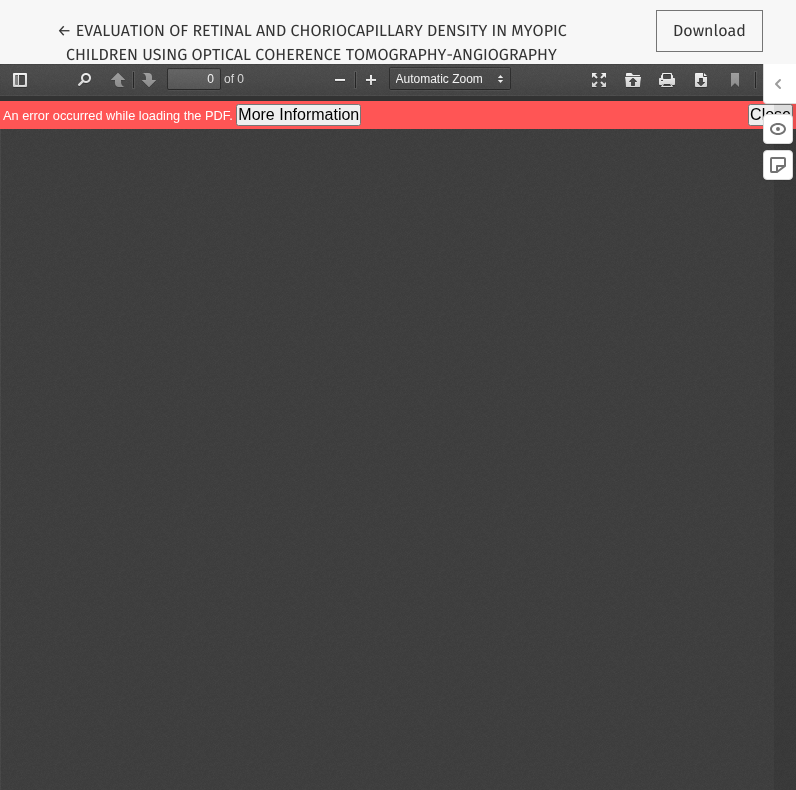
import math
import cairocffi as cairo

surface = cairo.ImageSurface(cairo.FORMAT_RGB24, 796, 790)
cr = cairo.Context(surface)
options = cairo.FontOptions()
options.set_hint_metrics(cairo.HINT_METRICS_OFF)
options.set_hint_style(cairo.HINT_STYLE_NONE)
cr.set_font_options(options)
cr.set_miter_limit(4)


def use_color(code):
    cr.set_source_rgb(*(v / 255 for v in bytes.fromhex(code[-6:])))


def picture(path, x, y, w, h):
    cr.save()
    cr.set_source_surface(cairo.ImageSurface.create_from_png(path), x, y)
    cr.rectangle(x, y, w, h)
    cr.fill()
    cr.restore()


use_color("#f7f7f7")
cr.paint()
cr.select_font_face("Fira Sans")
cr.set_font_size(16)
use_color("#333333")
cr.move_to(57, 36)
cr.show_text("← EVALUATION OF RETINAL AND CHORIOCAPILLARY DENSITY IN MYOPIC")
cr.move_to(66, 60)
cr.show_text("CHILDREN USING OPTICAL COHERENCE TOMOGRAPHY-ANGIOGRAPHY")
cr.rectangle(656.5, 10.5, 106, 41)
use_color("#757575")
cr.set_line_width(1)
cr.stroke()
use_color("#333333")
cr.move_to(673, 36)
cr.show_text("Download")
picture("img1.png", 0, 64, 796, 726)
surface.write_to_png("result.png")
